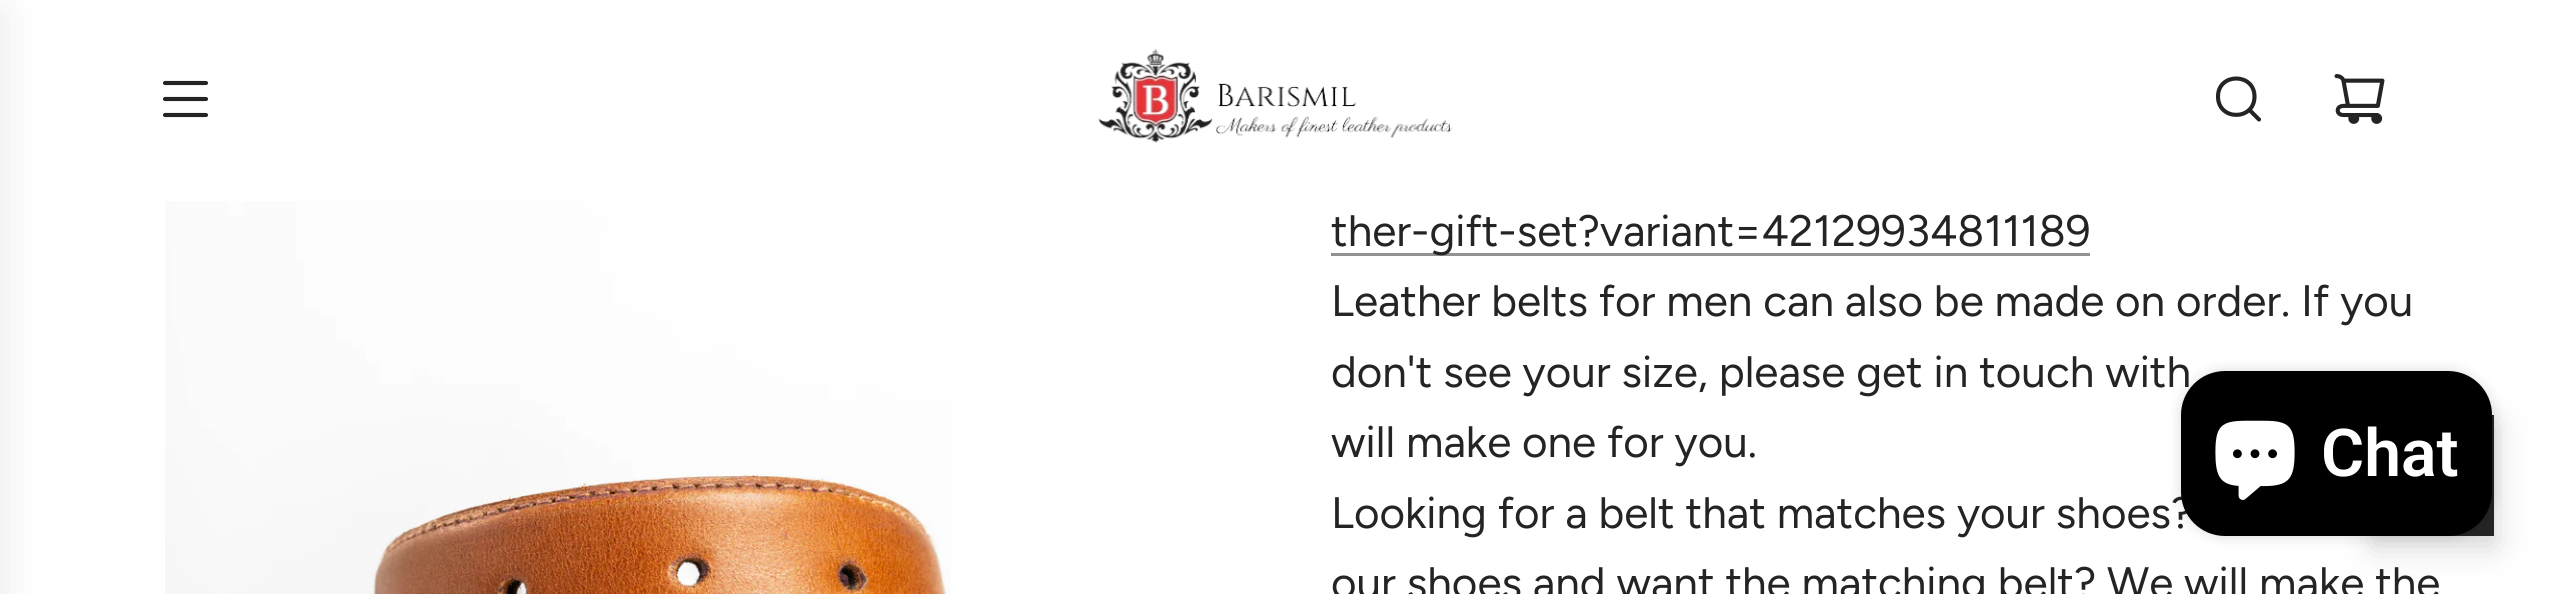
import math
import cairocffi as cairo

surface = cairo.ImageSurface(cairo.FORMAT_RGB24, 2551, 594)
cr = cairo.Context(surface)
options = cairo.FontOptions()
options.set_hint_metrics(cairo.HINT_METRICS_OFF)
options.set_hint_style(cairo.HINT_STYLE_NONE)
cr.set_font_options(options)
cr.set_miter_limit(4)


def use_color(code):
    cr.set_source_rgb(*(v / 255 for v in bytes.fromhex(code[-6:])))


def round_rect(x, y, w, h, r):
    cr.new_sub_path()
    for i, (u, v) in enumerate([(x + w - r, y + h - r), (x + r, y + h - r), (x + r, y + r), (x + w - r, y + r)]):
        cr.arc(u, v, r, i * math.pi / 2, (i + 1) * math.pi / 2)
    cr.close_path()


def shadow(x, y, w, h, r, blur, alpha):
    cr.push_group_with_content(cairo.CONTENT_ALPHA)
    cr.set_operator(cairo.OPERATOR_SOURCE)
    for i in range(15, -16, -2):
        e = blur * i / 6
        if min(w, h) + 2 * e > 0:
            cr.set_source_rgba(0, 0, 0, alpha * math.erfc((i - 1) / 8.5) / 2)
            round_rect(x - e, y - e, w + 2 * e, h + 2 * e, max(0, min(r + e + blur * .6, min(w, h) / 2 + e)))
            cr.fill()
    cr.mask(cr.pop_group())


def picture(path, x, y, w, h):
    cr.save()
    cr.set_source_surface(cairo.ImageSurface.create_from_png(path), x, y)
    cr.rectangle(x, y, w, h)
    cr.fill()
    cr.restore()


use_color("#ffffff")
cr.paint()
use_color("#000000")
shadow(-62, 14, 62, 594, 0, 20.5, 0.1)
cr.new_path()
cr.move_to(165, 83)
cr.line_to(206, 83)
cr.move_to(165, 99)
cr.line_to(206, 99)
cr.move_to(165, 115)
cr.line_to(206, 115)
use_color("#242424")
cr.set_line_width(4.1)
cr.set_line_cap(cairo.LINE_CAP_ROUND)
cr.set_line_join(cairo.LINE_JOIN_ROUND)
cr.stroke()
picture("img1.png", 1098, 48, 355, 95)
cr.new_path()
cr.move_to(2250, 110.5)
cr.line_to(2259, 119.5)
cr.move_to(2218, 96.5)
cr.curve_to(2218, 121, 2254.5, 121, 2254.5, 96.5)
cr.curve_to(2254.5, 72.5, 2218, 72.5, 2218, 96.5)
cr.close_path()
cr.stroke()
picture("img2.png", 2334, 74, 51, 50)
picture("img3.png", 165, 201, 786, 393)
use_color("#929292")
cr.rectangle(1331, 253, 759, 3)
cr.fill()
cr.select_font_face("Figtree")
cr.set_font_size(44)
use_color("#242424")
cr.move_to(1331, 246)
cr.show_text("ther-gift-set?variant=42129934811189")
cr.move_to(1331, 316)
cr.show_text("Leather belts for men can also be made on order. If you")
cr.move_to(1331, 387)
cr.show_text("don't see your size, please get in touch with")
cr.move_to(1331, 457)
cr.show_text("will make one for you.")
cr.move_to(1331, 528)
cr.show_text("Looking for a belt that matches your shoes?")
cr.move_to(1331, 598)
cr.show_text("our shoes and want the matching belt? We will make the")
use_color("#000000")
shadow(2373, 424, 121, 121, 0, 16.5, 0.18)
use_color("#242424")
cr.rectangle(2448, 415, 46, 121)
cr.fill()
use_color("#000000")
shadow(2181, 371, 311, 165, 44, 7, 0.15)
use_color("#000000")
round_rect(2181, 371, 311, 165, 44)
cr.fill()
picture("img4.png", 2215, 420, 80, 80)
cr.select_font_face("Roboto SemiBold")
cr.set_font_size(66)
use_color("#ffffff")
cr.move_to(2321, 476)
cr.show_text("Chat")
surface.write_to_png("result.png")
